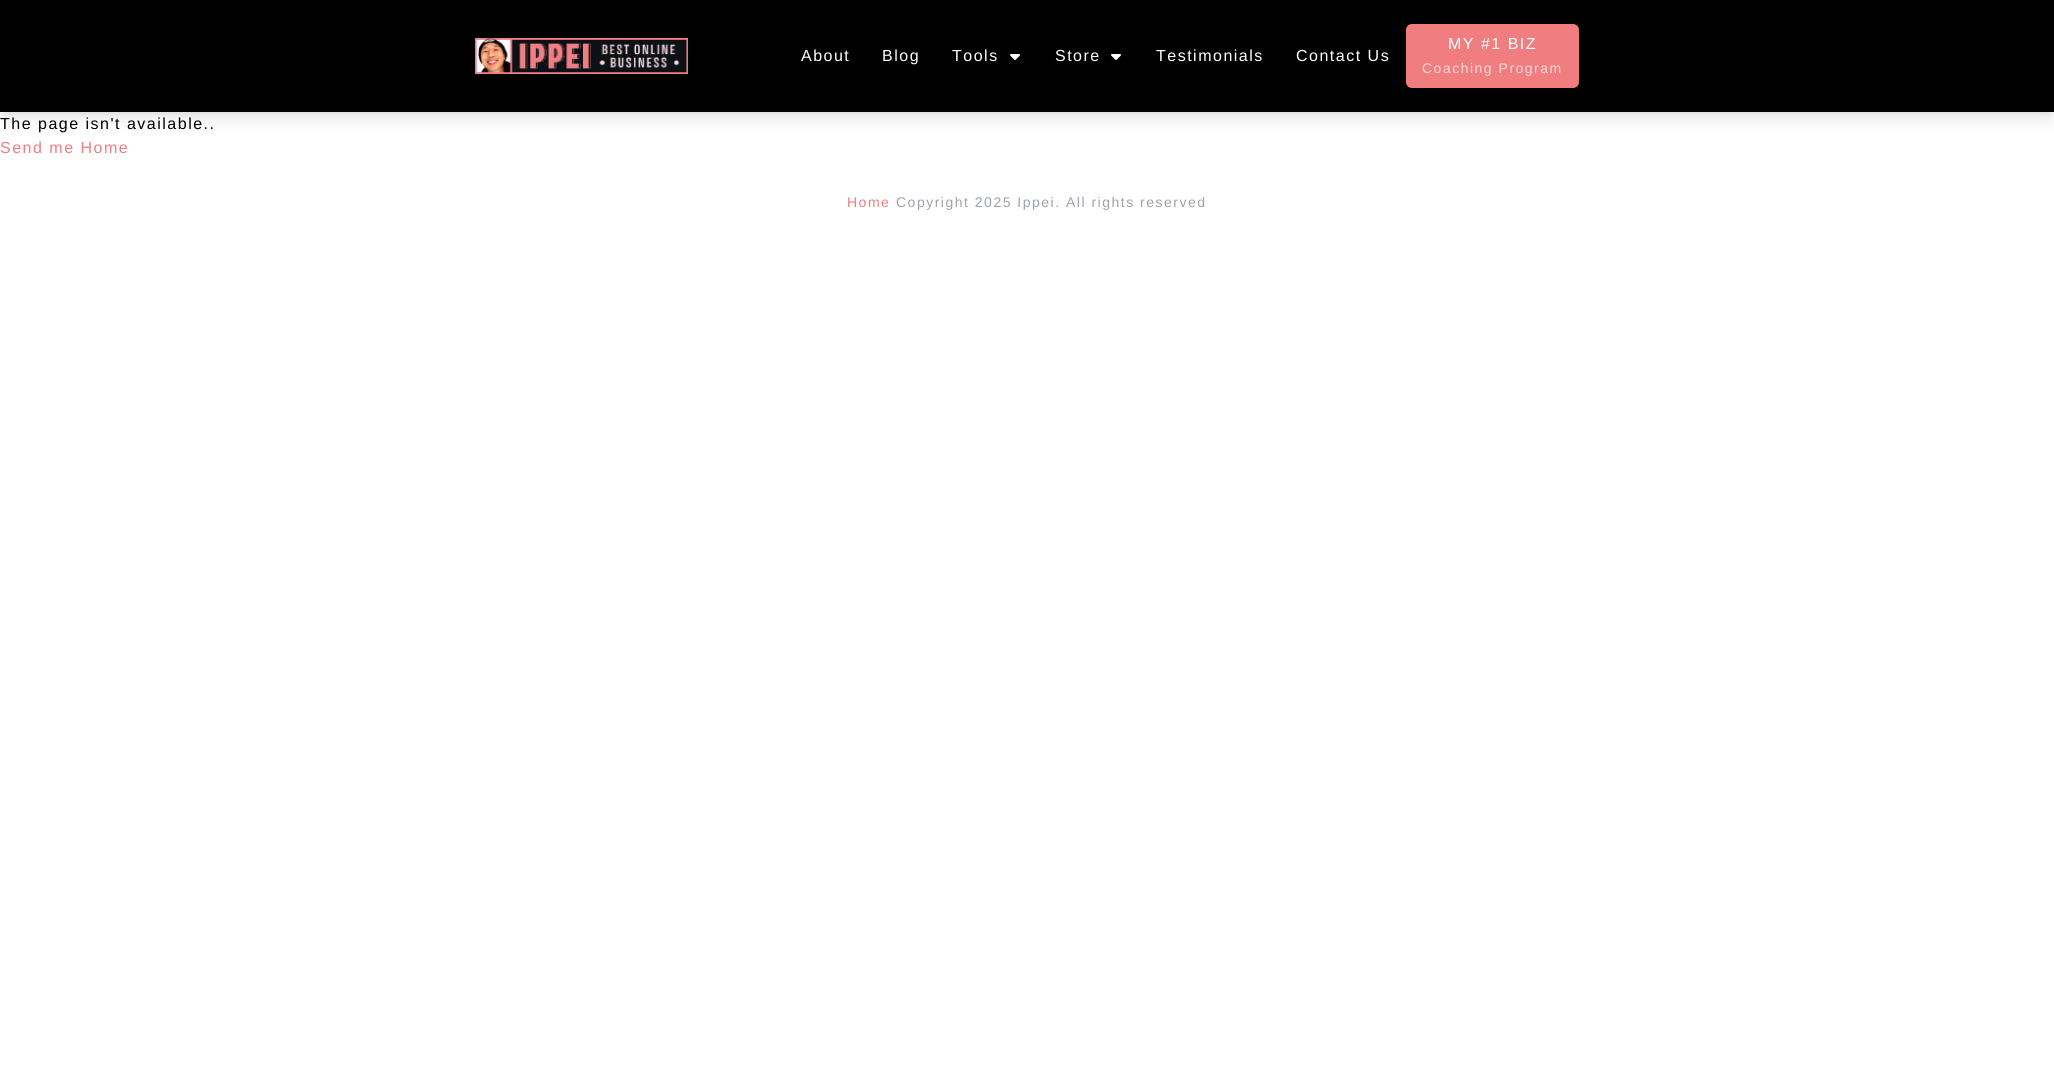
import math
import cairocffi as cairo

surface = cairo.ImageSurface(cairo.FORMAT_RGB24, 2054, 1076)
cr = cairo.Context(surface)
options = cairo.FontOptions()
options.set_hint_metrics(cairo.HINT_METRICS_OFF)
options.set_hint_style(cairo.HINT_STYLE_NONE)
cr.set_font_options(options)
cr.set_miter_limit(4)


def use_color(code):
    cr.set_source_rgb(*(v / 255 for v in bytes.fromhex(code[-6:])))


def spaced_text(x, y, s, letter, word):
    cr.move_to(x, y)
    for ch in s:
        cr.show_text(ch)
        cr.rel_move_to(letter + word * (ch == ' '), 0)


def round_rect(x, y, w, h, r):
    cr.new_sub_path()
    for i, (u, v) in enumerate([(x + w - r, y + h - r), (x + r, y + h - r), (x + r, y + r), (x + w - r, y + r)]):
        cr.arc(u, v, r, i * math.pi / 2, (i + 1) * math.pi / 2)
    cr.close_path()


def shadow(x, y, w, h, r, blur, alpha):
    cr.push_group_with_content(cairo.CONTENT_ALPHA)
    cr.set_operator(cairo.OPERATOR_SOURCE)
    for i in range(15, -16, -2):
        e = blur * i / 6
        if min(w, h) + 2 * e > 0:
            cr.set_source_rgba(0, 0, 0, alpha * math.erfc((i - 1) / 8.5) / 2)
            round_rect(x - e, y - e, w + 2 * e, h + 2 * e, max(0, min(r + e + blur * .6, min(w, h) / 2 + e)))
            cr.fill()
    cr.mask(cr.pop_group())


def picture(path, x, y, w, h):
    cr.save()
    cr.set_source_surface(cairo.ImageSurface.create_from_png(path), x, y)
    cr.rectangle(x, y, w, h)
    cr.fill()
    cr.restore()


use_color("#ffffff")
cr.paint()
use_color("#000000")
shadow(4, 8, 2046, 104, 0, 3, 0.1)
shadow(3, 13, 2048, 106, 0, 7.5, 0.1)
use_color("#000000")
cr.rectangle(0, 0, 2054, 112)
cr.fill()
picture("img1.png", 475, 38, 213, 36)
cr.select_font_face("Liberation Sans")
cr.set_font_size(16)
use_color("#ffffff")
spaced_text(801, 61, "About", 1.5, 0)
spaced_text(882, 61, "Blog", 1.5, 0)
spaced_text(952, 61, "Tools", 1.5, 0)
picture("img2.png", 1010, 54, 10, 6)
spaced_text(1055, 61, "Store", 1.5, 0)
picture("img2.png", 1111, 54, 10, 6)
spaced_text(1156, 61, "Testimonials", 1.5, 0)
spaced_text(1296, 61, "Contact Us", 1.5, 0)
use_color("#f07d7f")
round_rect(1406, 24, 173, 64, 6)
cr.fill()
use_color("#ffffff")
spaced_text(1448, 49, "MY #1 BIZ", 1.5, 0)
cr.set_font_size(14)
use_color("#fbd8d9")
spaced_text(1422, 73, "Coaching Program", 1.5, 0)
cr.set_font_size(16)
use_color("#000000")
spaced_text(0, 129, "The page isn't available..", 1.5, 0)
use_color("#f07d7f")
spaced_text(0, 153, "Send me Home", 1.5, 0)
cr.set_font_size(14)
spaced_text(847, 207, "Home", 1.5, 0)
use_color("#9ca3af")
spaced_text(896, 207, "Copyright 2025 Ippei. All rights reserved", 1.5, 0)
surface.write_to_png("result.png")
